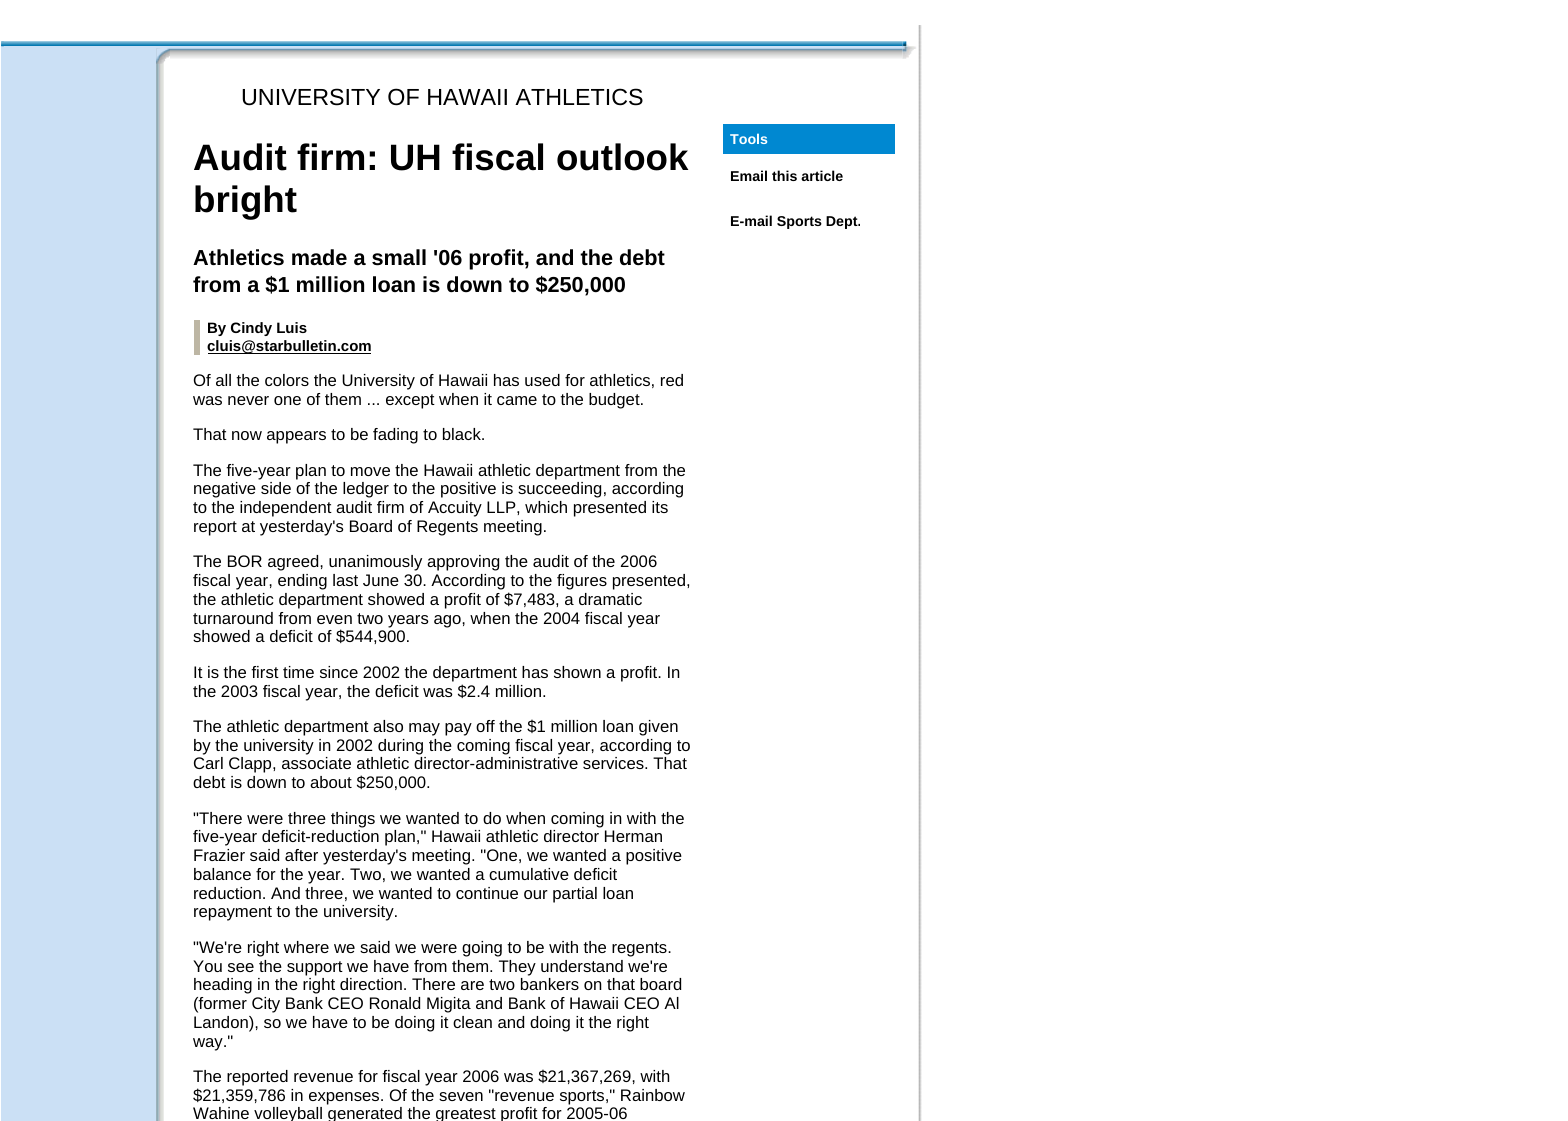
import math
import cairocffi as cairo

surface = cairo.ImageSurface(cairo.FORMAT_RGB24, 1568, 1121)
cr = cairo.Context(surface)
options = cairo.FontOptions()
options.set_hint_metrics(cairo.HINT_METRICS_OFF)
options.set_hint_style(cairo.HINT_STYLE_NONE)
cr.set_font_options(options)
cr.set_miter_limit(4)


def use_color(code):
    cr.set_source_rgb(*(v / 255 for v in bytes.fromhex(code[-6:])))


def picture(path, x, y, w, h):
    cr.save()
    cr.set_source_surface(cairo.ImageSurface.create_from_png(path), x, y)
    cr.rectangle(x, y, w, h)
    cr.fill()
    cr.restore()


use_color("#ffffff")
cr.paint()
picture("img1.png", 1, 41, 902, 5)
use_color("#cbe0f5")
cr.rectangle(1, 46, 902, 3)
cr.fill()
picture("img2.png", 1, 41, 3, 6)
picture("img4.png", 903, 46, 13, 3)
picture("img3.png", 902, 41, 7, 6)
picture("img8.png", 170, 48, 733, 11)
picture("img5.png", 902, 46, 15, 3)
cr.rectangle(1, 49, 155, 1072)
cr.fill()
picture("img6.png", 156, 48, 8, 1073)
picture("img7.png", 156, 48, 14, 16)
cr.select_font_face("Liberation Sans")
cr.set_font_size(23.3)
use_color("#000000")
cr.move_to(241, 105)
cr.show_text("UNIVERSITY OF HAWAII ATHLETICS")
cr.select_font_face("Liberation Sans", cairo.FONT_SLANT_NORMAL, cairo.FONT_WEIGHT_BOLD)
cr.set_font_size(36.7)
cr.move_to(193, 170)
cr.show_text("Audit firm: UH fiscal outlook")
cr.move_to(193, 212)
cr.show_text("bright")
cr.set_font_size(21.7)
cr.move_to(193, 265)
cr.show_text("Athletics made a small '06 profit, and the debt")
cr.move_to(193, 292)
cr.show_text("from a $1 million loan is down to $250,000")
use_color("#bdb6a4")
cr.rectangle(194, 320, 6, 35)
cr.fill()
cr.set_font_size(15)
use_color("#000000")
cr.move_to(207, 333)
cr.show_text("By Cindy Luis")
cr.rectangle(208, 353, 163, 1)
cr.fill()
cr.move_to(207, 351)
cr.show_text("cluis@starbulletin.com")
cr.select_font_face("Liberation Sans")
cr.set_font_size(16.7)
cr.move_to(193, 386)
cr.show_text("Of all the colors the University of Hawaii has used for athletics, red")
cr.move_to(193, 405)
cr.show_text("was never one of them ... except when it came to the budget.")
cr.move_to(193, 440)
cr.show_text("That now appears to be fading to black.")
cr.move_to(193, 476)
cr.show_text("The five-year plan to move the Hawaii athletic department from the")
cr.move_to(193, 494)
cr.show_text("negative side of the ledger to the positive is succeeding, according")
cr.move_to(193, 513)
cr.show_text("to the independent audit firm of Accuity LLP, which presented its")
cr.move_to(193, 532)
cr.show_text("report at yesterday's Board of Regents meeting.")
cr.move_to(193, 567)
cr.show_text("The BOR agreed, unanimously approving the audit of the 2006")
cr.move_to(193, 586)
cr.show_text("fiscal year, ending last June 30. According to the figures presented,")
cr.move_to(193, 605)
cr.show_text("the athletic department showed a profit of $7,483, a dramatic")
cr.move_to(193, 624)
cr.show_text("turnaround from even two years ago, when the 2004 fiscal year")
cr.move_to(193, 642)
cr.show_text("showed a deficit of $544,900.")
cr.move_to(193, 678)
cr.show_text("It is the first time since 2002 the department has shown a profit. In")
cr.move_to(193, 697)
cr.show_text("the 2003 fiscal year, the deficit was $2.4 million.")
cr.move_to(193, 732)
cr.show_text("The athletic department also may pay off the $1 million loan given")
cr.move_to(193, 751)
cr.show_text("by the university in 2002 during the coming fiscal year, according to")
cr.move_to(193, 769)
cr.show_text("Carl Clapp, associate athletic director-administrative services. That")
cr.move_to(193, 788)
cr.show_text("debt is down to about $250,000.")
cr.move_to(193, 824)
cr.show_text("\"There were three things we wanted to do when coming in with the")
cr.move_to(193, 842)
cr.show_text("five-year deficit-reduction plan,\" Hawaii athletic director Herman")
cr.move_to(193, 861)
cr.show_text("Frazier said after yesterday's meeting. \"One, we wanted a positive")
cr.move_to(193, 880)
cr.show_text("balance for the year. Two, we wanted a cumulative deficit")
cr.move_to(193, 899)
cr.show_text("reduction. And three, we wanted to continue our partial loan")
cr.move_to(193, 917)
cr.show_text("repayment to the university.")
cr.move_to(193, 953)
cr.show_text("\"We're right where we said we were going to be with the regents.")
cr.move_to(193, 972)
cr.show_text("You see the support we have from them. They understand we're")
cr.move_to(193, 990)
cr.show_text("heading in the right direction. There are two bankers on that board")
cr.move_to(193, 1009)
cr.show_text("(former City Bank CEO Ronald Migita and Bank of Hawaii CEO Al")
cr.move_to(193, 1028)
cr.show_text("Landon), so we have to be doing it clean and doing it the right")
cr.move_to(193, 1047)
cr.show_text("way.\"")
cr.move_to(193, 1082)
cr.show_text("The reported revenue for fiscal year 2006 was $21,367,269, with")
cr.move_to(193, 1101)
cr.show_text("$21,359,786 in expenses. Of the seven \"revenue sports,\" Rainbow")
cr.move_to(193, 1119)
cr.show_text("Wahine volleyball generated the greatest profit for 2005-06")
use_color("#0088d1")
cr.rectangle(723, 124, 172, 30)
cr.fill()
cr.select_font_face("Liberation Sans", cairo.FONT_SLANT_NORMAL, cairo.FONT_WEIGHT_BOLD)
cr.set_font_size(14.25)
use_color("#ffffff")
cr.move_to(730, 144)
cr.show_text("Tools")
use_color("#000000")
cr.move_to(730, 181)
cr.show_text("Email this article")
cr.move_to(730, 226)
cr.show_text("E-mail Sports Dept.")
picture("img9.png", 902, 48, 12, 11)
picture("img10.png", 918, 25, 4, 1096)
surface.write_to_png("result.png")
